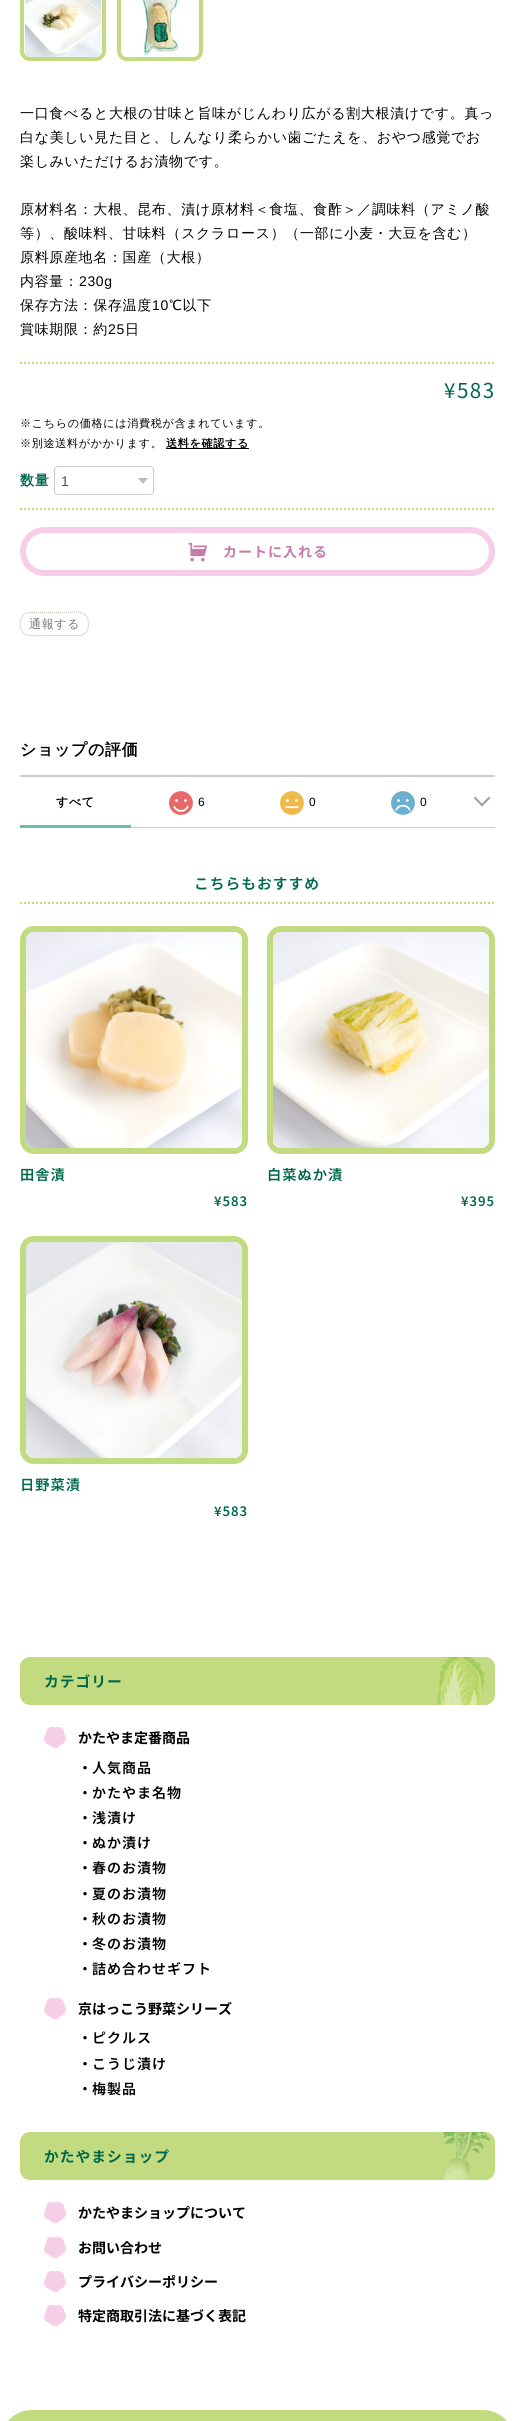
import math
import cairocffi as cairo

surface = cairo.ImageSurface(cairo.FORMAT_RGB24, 515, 2421)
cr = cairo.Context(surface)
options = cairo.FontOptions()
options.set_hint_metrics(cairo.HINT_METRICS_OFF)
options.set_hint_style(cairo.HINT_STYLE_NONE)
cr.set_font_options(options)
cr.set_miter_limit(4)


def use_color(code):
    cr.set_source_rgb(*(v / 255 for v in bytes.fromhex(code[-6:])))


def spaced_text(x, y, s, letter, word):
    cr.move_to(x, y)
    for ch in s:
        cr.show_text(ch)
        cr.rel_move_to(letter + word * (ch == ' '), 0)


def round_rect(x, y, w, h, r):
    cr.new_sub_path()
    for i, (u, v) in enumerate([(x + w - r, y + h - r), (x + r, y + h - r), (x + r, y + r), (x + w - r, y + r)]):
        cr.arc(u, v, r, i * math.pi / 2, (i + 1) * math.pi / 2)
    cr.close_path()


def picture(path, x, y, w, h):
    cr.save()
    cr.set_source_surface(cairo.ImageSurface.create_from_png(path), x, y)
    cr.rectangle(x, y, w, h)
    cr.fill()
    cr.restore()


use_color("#ffffff")
cr.paint()
round_rect(22, -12, 82, 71, 8)
use_color("#c2db80")
cr.set_line_width(4)
cr.stroke()
picture("img1.png", 25, 0, 76, 57)
round_rect(119, -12, 82, 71, 8)
cr.stroke()
picture("img2.png", 122, 0, 76, 57)
cr.select_font_face("WenQuanYi Zen Hei Medium")
cr.set_font_size(14)
use_color("#000000")
spaced_text(20, 118, "一口食べると大根の甘味と旨味がじんわり広がる割大根漬けです。真っ", 0.65, 0)
spaced_text(20, 142, "白な美しい見た目と、しんなり柔らかい歯ごたえを、おやつ感覚でお", 0.65, 0)
spaced_text(20, 166, "楽しみいただけるお漬物です。", 0.65, 0)
spaced_text(20, 214, "原材料名：大根、昆布、漬け原材料＜食塩、食酢＞／調味料（アミノ酸", 0.65, 0)
spaced_text(20, 238, "等）、酸味料、甘味料（スクラロース）（一部に小麦・大豆を含む）", 0.65, 0)
spaced_text(20, 262, "原料原産地名：国産（大根）", 0.65, 0)
spaced_text(20, 286, "内容量：", 0.65, 0)
cr.select_font_face("Liberation Sans")
spaced_text(79, 286, "230g", 0.65, 0)
cr.select_font_face("WenQuanYi Zen Hei Medium")
spaced_text(20, 310, "保存方法：保存温度", 0.65, 0)
cr.select_font_face("Liberation Sans")
spaced_text(152, 310, "10", 0.65, 0)
cr.select_font_face("WenQuanYi Zen Hei Medium")
spaced_text(169, 310, "℃以下", 0.65, 0)
spaced_text(20, 334, "賞味期限：約", 0.65, 0)
cr.select_font_face("Liberation Sans")
spaced_text(108, 334, "25", 0.65, 0)
cr.select_font_face("WenQuanYi Zen Hei Medium")
spaced_text(125, 334, "日", 0.65, 0)
cr.new_path()
cr.move_to(20, 363)
cr.line_to(495, 363)
use_color("#c2db80")
cr.set_line_width(2)
cr.set_dash([2, 2])
cr.stroke()
cr.select_font_face("Noto Sans JP")
cr.set_font_size(20.5)
use_color("#00684a")
spaced_text(444, 398, "¥583", 1.5, 0)
cr.select_font_face("WenQuanYi Zen Hei Medium")
cr.set_font_size(11.1)
use_color("#000000")
spaced_text(20, 427, "※こちらの価格には消費税が含まれています。", 0.65, 0)
spaced_text(20, 447, "※別途送料がかかります。", 0.65, 0)
cr.rectangle(166, 448, 83, 1)
cr.fill()
cr.select_font_face("WenQuanYi Zen Hei", cairo.FONT_SLANT_NORMAL, cairo.FONT_WEIGHT_BOLD)
spaced_text(166, 447, "送料を確認する", 0.65, 0)
cr.set_font_size(14)
use_color("#00684a")
spaced_text(20, 485, "数量", 0.65, 0)
picture("img3.png", 138, 478, 10, 6)
round_rect(54.5, 466.5, 99, 28, 3.5)
use_color("#cccccc")
cr.set_line_width(1)
cr.set_dash([])
cr.stroke()
cr.select_font_face("Liberation Sans")
use_color("#555555")
cr.move_to(61, 486)
cr.show_text("1")
cr.new_path()
cr.move_to(20, 509)
cr.line_to(495, 509)
use_color("#c2db80")
cr.set_line_width(2)
cr.set_dash([2, 2])
cr.stroke()
round_rect(23, 530, 469, 43, 21.5)
use_color("#f6cee7")
cr.set_line_width(6)
cr.set_dash([])
cr.stroke()
picture("img4.png", 188, 542, 19, 20)
cr.select_font_face("Noto Sans JP", cairo.FONT_SLANT_NORMAL, cairo.FONT_WEIGHT_BOLD)
use_color("#c67baa")
spaced_text(223, 557, "カートに入れる", 1, 0)
cr.new_path()
cr.move_to(30, 612.5)
cr.line_to(62.5, 612.5)
cr.curve_to(74, 612.5, 88.5, 608.5, 88.5, 624)
cr.curve_to(88.5, 630, 85.5, 635.5, 79, 635.5)
cr.line_to(46.5, 635.5)
cr.curve_to(34, 635.5, 17, 639, 20.5, 620)
cr.curve_to(21.5, 615.5, 25.5, 612.5, 30, 612.5)
cr.close_path()
use_color("#b8b6ae")
cr.set_line_width(1)
cr.set_dash([1, 1])
cr.stroke()
cr.select_font_face("WenQuanYi Zen Hei Medium")
cr.set_font_size(12)
use_color("#777777")
spaced_text(29, 628, "通報する", 0.65, 0)
cr.select_font_face("WenQuanYi Zen Hei", cairo.FONT_SLANT_NORMAL, cairo.FONT_WEIGHT_BOLD)
cr.set_font_size(16)
use_color("#000000")
spaced_text(20, 755, "ショップの評価", 0.65, 0)
use_color("#cccccc")
cr.rectangle(20, 775, 475, 2)
cr.fill()
cr.rectangle(131, 827, 364, 1)
cr.fill()
cr.set_font_size(12)
use_color("#000000")
spaced_text(56, 806, "すべて", 0.65, 0)
picture("img5.png", 169, 791, 24, 24)
cr.select_font_face("Liberation Sans")
spaced_text(198, 806, "6", 0.65, 0)
picture("img6.png", 280, 791, 24, 24)
spaced_text(309, 806, "0", 0.65, 0)
picture("img7.png", 391, 791, 24, 24)
spaced_text(420, 806, "0", 0.65, 0)
use_color("#63c1ae")
cr.rectangle(20, 825, 111, 3)
cr.fill()
use_color("#a0a0a0")
cr.new_path()
cr.move_to(489, 796.5)
cr.line_to(490.5, 798)
cr.line_to(482, 806.5)
cr.line_to(480.5, 805)
cr.close_path()
cr.fill()
cr.new_path()
cr.move_to(475, 796.5)
cr.line_to(483.5, 805)
cr.line_to(482, 806.5)
cr.line_to(473.5, 798)
cr.close_path()
cr.fill()
cr.new_path()
cr.move_to(20, 903)
cr.line_to(495, 903)
use_color("#c2db80")
cr.set_line_width(2)
cr.set_dash([2, 2])
cr.stroke()
cr.select_font_face("Noto Sans JP SemiBold")
cr.set_font_size(14.75)
use_color("#00684a")
spaced_text(194, 889, "こちらもおすすめ", 1, 0)
round_rect(23, 929, 222, 222, 11)
use_color("#c2db80")
cr.set_line_width(6)
cr.set_dash([])
cr.stroke()
picture("img8.png", 26, 932, 216, 216)
cr.set_font_size(14.25)
use_color("#00684a")
spaced_text(20, 1180, "田舎漬", 1, 0)
cr.set_font_size(13)
spaced_text(214, 1206, "¥583", 1, 0)
round_rect(270, 929, 222, 222, 11)
use_color("#c2db80")
cr.stroke()
picture("img9.png", 273, 932, 216, 216)
cr.set_font_size(14.25)
use_color("#00684a")
spaced_text(267, 1180, "白菜ぬか漬", 1, 0)
cr.set_font_size(13)
spaced_text(461, 1206, "¥395", 1, 0)
round_rect(23, 1239, 222, 222, 11)
use_color("#c2db80")
cr.stroke()
picture("img10.png", 26, 1242, 216, 216)
cr.set_font_size(14.25)
use_color("#00684a")
spaced_text(20, 1490, "日野菜漬", 1, 0)
cr.set_font_size(13)
spaced_text(214, 1516, "¥583", 1, 0)
use_color("#c2db80")
round_rect(20, 1657, 475, 48, 10)
cr.fill()
picture("img11.png", 437, 1657, 48, 48)
cr.select_font_face("Noto Sans JP", cairo.FONT_SLANT_NORMAL, cairo.FONT_WEIGHT_BOLD)
cr.set_font_size(14.75)
use_color("#00684a")
spaced_text(44, 1687, "カテゴリー", 1, 0)
picture("img12.png", 44, 1727, 22, 21)
cr.set_font_size(14)
use_color("#000000")
cr.move_to(78, 1743)
cr.show_text("かたやま定番商品")
cr.select_font_face("Noto Sans JP SemiBold")
spaced_text(78, 1773, "・", 1, 0)
spaced_text(92, 1773, "人気商品", 1, 0)
spaced_text(78, 1798, "・", 1, 0)
spaced_text(92, 1798, "かたやま名物", 1, 0)
spaced_text(78, 1823, "・", 1, 0)
spaced_text(92, 1823, "浅漬け", 1, 0)
spaced_text(78, 1848, "・", 1, 0)
spaced_text(92, 1848, "ぬか漬け", 1, 0)
spaced_text(78, 1873, "・", 1, 0)
spaced_text(92, 1873, "春のお漬物", 1, 0)
spaced_text(78, 1899, "・", 1, 0)
spaced_text(92, 1899, "夏のお漬物", 1, 0)
spaced_text(78, 1924, "・", 1, 0)
spaced_text(92, 1924, "秋のお漬物", 1, 0)
spaced_text(78, 1949, "・", 1, 0)
spaced_text(92, 1949, "冬のお漬物", 1, 0)
spaced_text(78, 1974, "・", 1, 0)
spaced_text(92, 1974, "詰め合わせギフト", 1, 0)
picture("img12.png", 44, 1998, 22, 21)
cr.select_font_face("Noto Sans JP", cairo.FONT_SLANT_NORMAL, cairo.FONT_WEIGHT_BOLD)
cr.move_to(78, 2014)
cr.show_text("京はっこう野菜シリーズ")
cr.select_font_face("Noto Sans JP SemiBold")
spaced_text(78, 2043, "・", 1, 0)
spaced_text(92, 2043, "ピクルス", 1, 0)
spaced_text(78, 2069, "・", 1, 0)
spaced_text(92, 2069, "こうじ漬け", 1, 0)
spaced_text(78, 2094, "・", 1, 0)
spaced_text(92, 2094, "梅製品", 1, 0)
use_color("#c2db80")
round_rect(20, 2132, 475, 48, 10)
cr.fill()
picture("img13.png", 443, 2132, 48, 48)
cr.select_font_face("Noto Sans JP", cairo.FONT_SLANT_NORMAL, cairo.FONT_WEIGHT_BOLD)
cr.set_font_size(14.75)
use_color("#00684a")
spaced_text(44, 2162, "かたやまショップ", 1, 0)
picture("img12.png", 44, 2202, 22, 21)
cr.set_font_size(14)
use_color("#000000")
cr.move_to(78, 2218)
cr.show_text("かたやまショップについて")
picture("img12.png", 44, 2237, 22, 21)
cr.move_to(78, 2253)
cr.show_text("お問い合わせ")
picture("img12.png", 44, 2271, 22, 21)
cr.move_to(78, 2287)
cr.show_text("プライバシーポリシー")
picture("img12.png", 44, 2305, 22, 21)
cr.move_to(78, 2321)
cr.show_text("特定商取引法に基づく表記")
use_color("#c2db80")
cr.new_path()
cr.move_to(32, 2410)
cr.line_to(483, 2410)
cr.curve_to(500.5, 2410, 515, 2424.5, 515, 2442)
cr.line_to(515, 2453)
cr.line_to(0, 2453)
cr.line_to(0, 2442)
cr.curve_to(0, 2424.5, 14.5, 2410, 32, 2410)
cr.close_path()
cr.fill()
surface.write_to_png("result.png")
